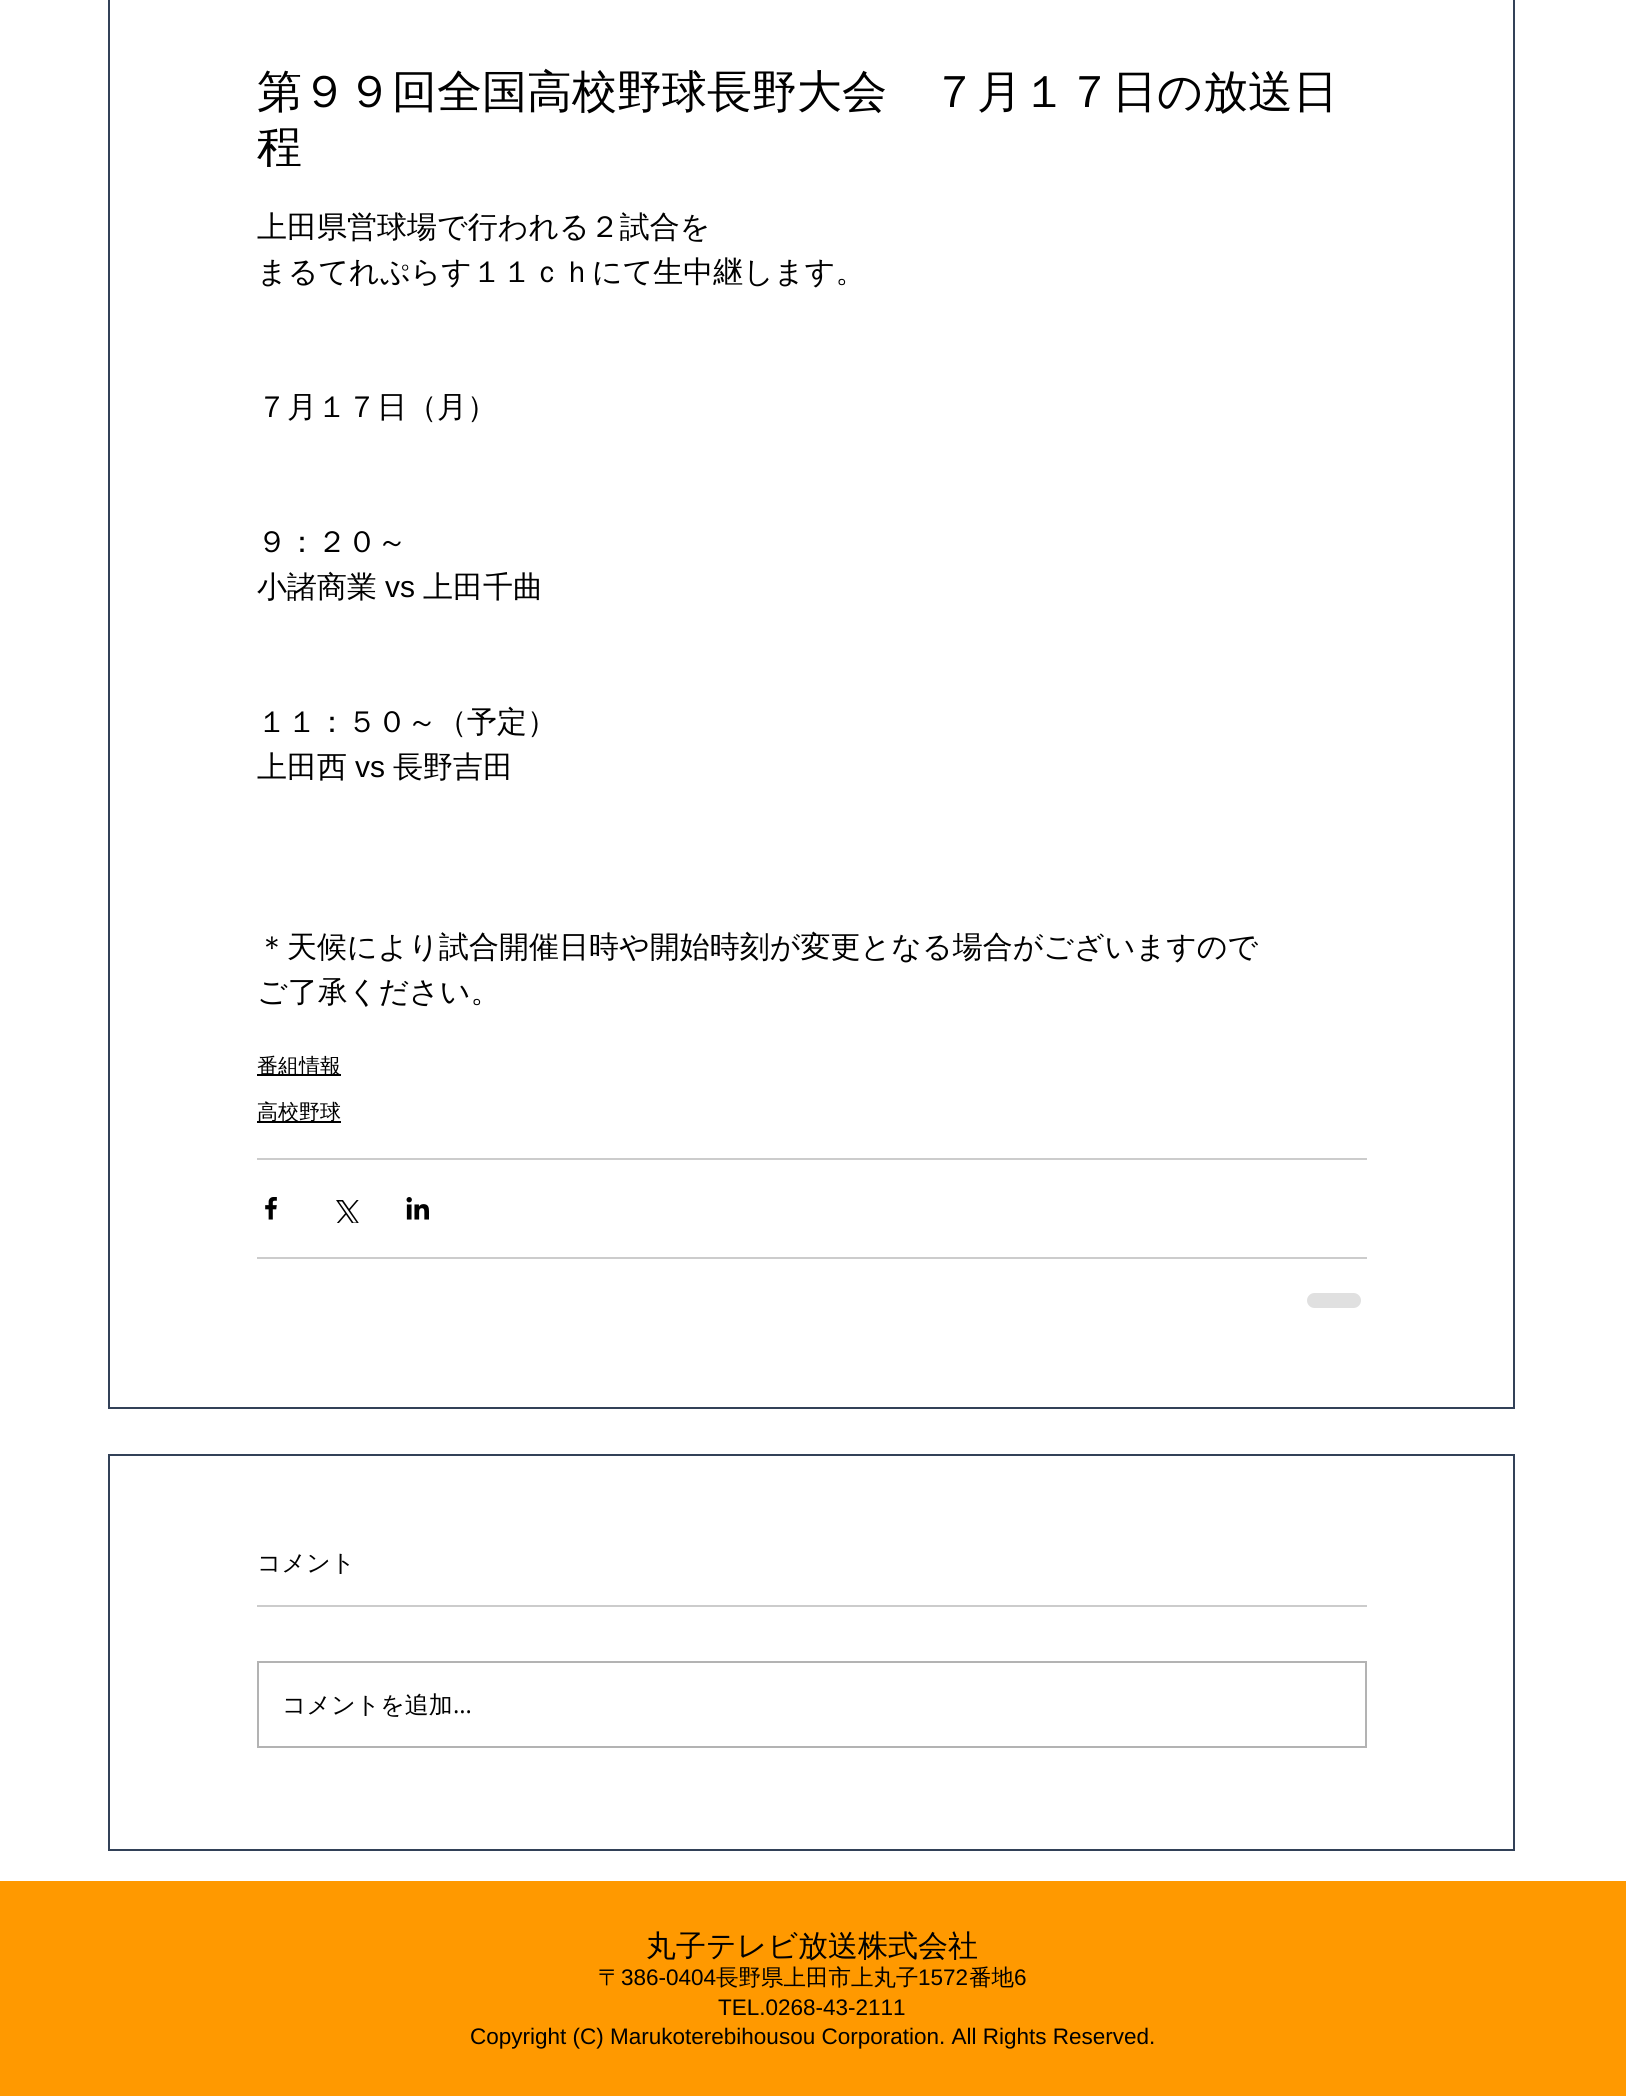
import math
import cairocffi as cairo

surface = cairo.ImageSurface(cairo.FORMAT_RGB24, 1626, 2096)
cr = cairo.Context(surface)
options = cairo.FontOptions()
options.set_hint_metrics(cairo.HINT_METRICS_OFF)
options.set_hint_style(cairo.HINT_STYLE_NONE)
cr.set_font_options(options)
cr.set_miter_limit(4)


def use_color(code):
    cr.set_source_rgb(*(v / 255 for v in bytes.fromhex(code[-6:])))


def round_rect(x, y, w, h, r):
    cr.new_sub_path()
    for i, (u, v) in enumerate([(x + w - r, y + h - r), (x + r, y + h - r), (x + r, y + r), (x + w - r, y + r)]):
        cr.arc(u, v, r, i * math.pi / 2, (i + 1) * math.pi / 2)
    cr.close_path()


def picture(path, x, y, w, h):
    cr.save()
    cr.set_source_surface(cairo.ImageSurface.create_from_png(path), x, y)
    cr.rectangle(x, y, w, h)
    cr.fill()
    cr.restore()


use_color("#ffffff")
cr.paint()
cr.rectangle(109, -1, 1405, 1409)
use_color("#324158")
cr.stroke()
cr.select_font_face("WenQuanYi Zen Hei Medium")
cr.set_font_size(45)
use_color("#000000")
cr.move_to(257, 107)
cr.show_text("第９９回全国高校野球長野大会　７月１７日の放送日")
cr.move_to(257, 162)
cr.show_text("程")
cr.set_font_size(30)
cr.move_to(257, 237)
cr.show_text("上田県営球場で行われる２試合を")
cr.move_to(257, 282)
cr.show_text("まるてれぷらす１１ｃｈにて生中継します。")
cr.move_to(257, 417)
cr.show_text("７月１７日（月）")
cr.move_to(257, 552)
cr.show_text("９：２０～")
cr.move_to(257, 597)
cr.show_text("小諸商業")
cr.select_font_face("Liberation Sans")
cr.move_to(385, 597)
cr.show_text("vs")
cr.select_font_face("WenQuanYi Zen Hei Medium")
cr.move_to(423, 597)
cr.show_text("上田千曲")
cr.move_to(257, 732)
cr.show_text("１１：５０～（予定）")
cr.move_to(257, 777)
cr.show_text("上田西")
cr.select_font_face("Liberation Sans")
cr.move_to(355, 777)
cr.show_text("vs")
cr.select_font_face("WenQuanYi Zen Hei Medium")
cr.move_to(393, 777)
cr.show_text("長野吉田")
cr.move_to(257, 957)
cr.show_text("＊天候により試合開催日時や開始時刻が変更となる場合がございますので")
cr.move_to(257, 1002)
cr.show_text("ご了承ください。")
cr.rectangle(257, 1074, 84, 2)
cr.fill()
cr.set_font_size(21)
cr.move_to(257, 1073)
cr.show_text("番組情報")
cr.rectangle(257, 1121, 84, 2)
cr.fill()
cr.move_to(257, 1119)
cr.show_text("高校野球")
use_color("#cccccc")
cr.rectangle(257, 1158, 1110, 2)
cr.fill()
picture("img1.png", 265, 1197, 12, 23)
picture("img2.png", 336, 1200, 23, 23)
picture("img3.png", 406, 1197, 23, 23)
cr.rectangle(257, 1257, 1110, 2)
cr.fill()
use_color("#e0e0e0")
round_rect(1307, 1293, 54, 15, 7.5)
cr.fill()
cr.rectangle(109, 1455, 1405, 395)
use_color("#324158")
cr.stroke()
cr.set_font_size(24)
use_color("#000000")
cr.move_to(257, 1571)
cr.show_text("コメント")
use_color("#cccccc")
cr.rectangle(257, 1605, 1110, 2)
cr.fill()
cr.rectangle(258, 1662, 1108, 85)
use_color("#b3b3b3")
cr.stroke()
use_color("#000000")
cr.move_to(282, 1713)
cr.show_text("コメントを追加")
cr.select_font_face("Open Sans")
cr.move_to(453, 1713)
cr.show_text("…")
use_color("#ff9900")
cr.rectangle(0, 1881, 1626, 215)
cr.fill()
cr.select_font_face("WenQuanYi Zen Hei Medium")
cr.set_font_size(30)
use_color("#000000")
cr.move_to(646, 1956)
cr.show_text("丸子テレビ放送株式会社")
cr.set_font_size(22.5)
cr.move_to(598, 1985)
cr.show_text("〒")
cr.select_font_face("Liberation Sans")
cr.move_to(621, 1985)
cr.show_text("386-0404")
cr.select_font_face("WenQuanYi Zen Hei Medium")
cr.move_to(716, 1985)
cr.show_text("長野県上田市上丸子")
cr.select_font_face("Liberation Sans")
cr.move_to(918, 1985)
cr.show_text("1572")
cr.select_font_face("WenQuanYi Zen Hei Medium")
cr.move_to(969, 1985)
cr.show_text("番地")
cr.select_font_face("Liberation Sans")
cr.move_to(1014, 1985)
cr.show_text("6")
cr.move_to(718, 2015)
cr.show_text("TEL.0268-43-2111")
cr.move_to(470, 2044)
cr.show_text("Copyright (C) Marukoterebihousou Corporation. All Rights Reserved.")
surface.write_to_png("result.png")
